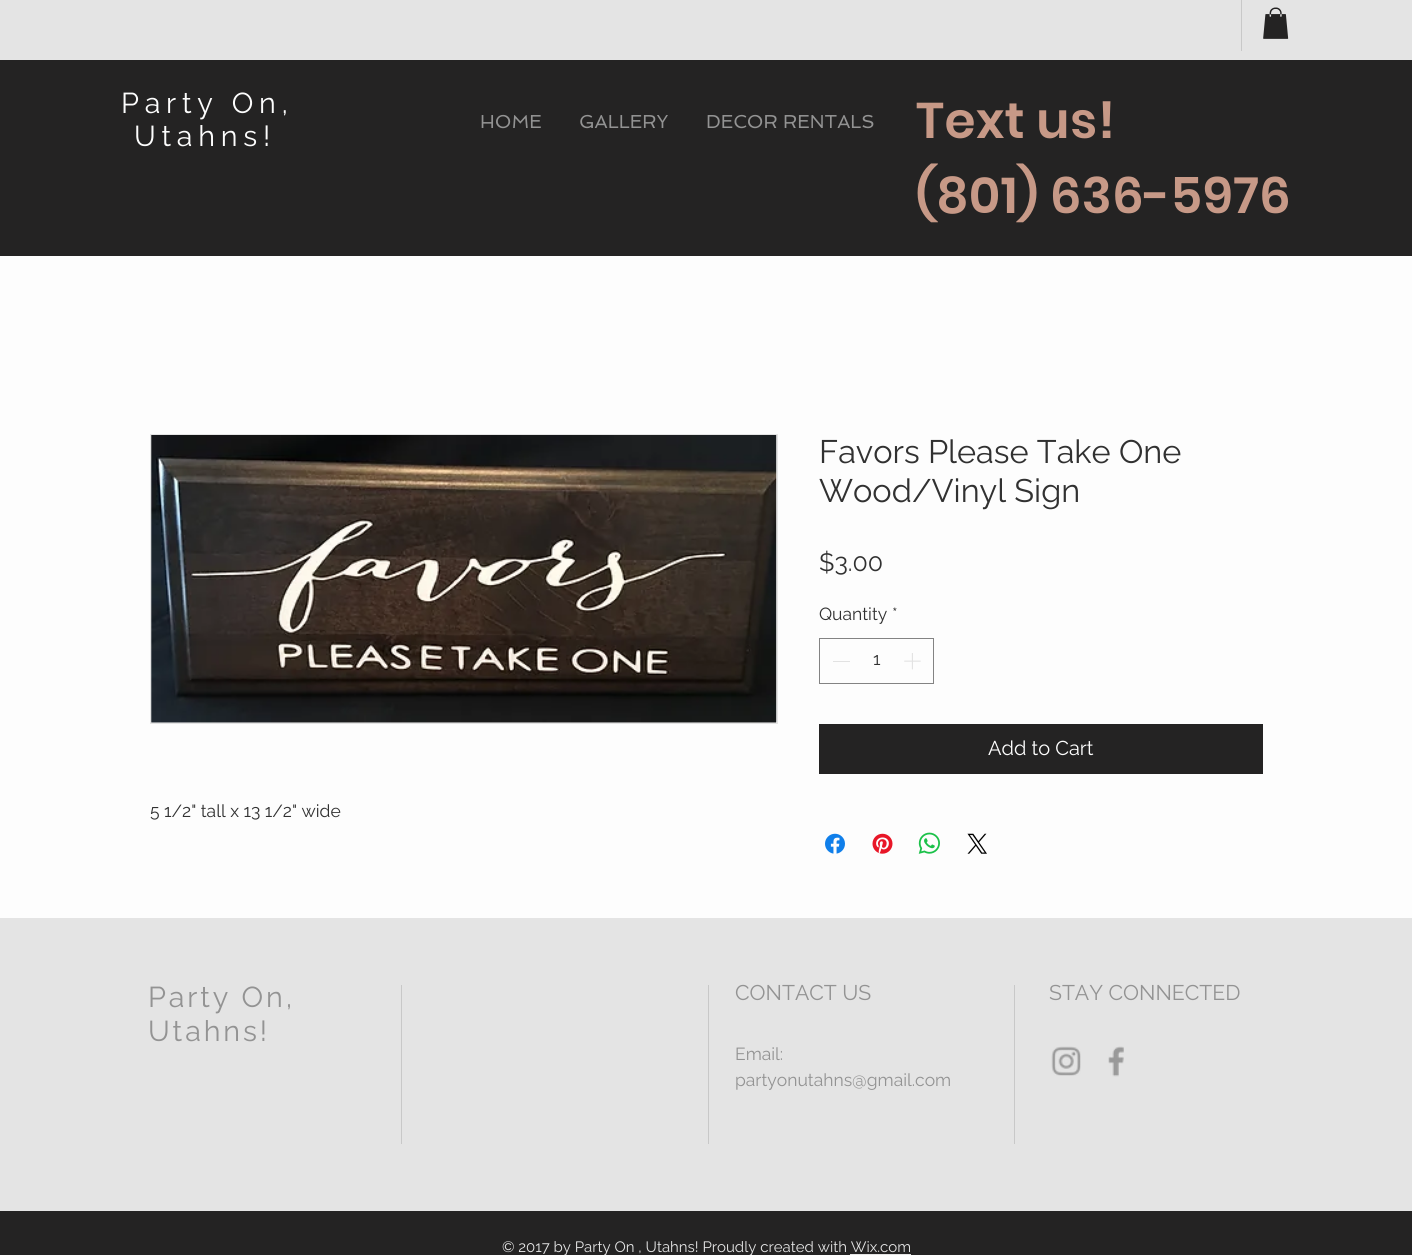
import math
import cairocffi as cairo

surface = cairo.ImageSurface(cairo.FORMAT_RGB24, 1412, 1255)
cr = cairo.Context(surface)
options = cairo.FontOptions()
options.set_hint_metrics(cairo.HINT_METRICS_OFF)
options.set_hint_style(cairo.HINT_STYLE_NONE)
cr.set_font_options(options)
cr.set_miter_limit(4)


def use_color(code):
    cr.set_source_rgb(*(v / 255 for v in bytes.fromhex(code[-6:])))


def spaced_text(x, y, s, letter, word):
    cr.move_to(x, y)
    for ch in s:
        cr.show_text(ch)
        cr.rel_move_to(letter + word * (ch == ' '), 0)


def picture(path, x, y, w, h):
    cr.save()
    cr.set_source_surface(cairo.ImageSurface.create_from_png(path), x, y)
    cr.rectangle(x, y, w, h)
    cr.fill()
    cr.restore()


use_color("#fdfdfd")
cr.paint()
use_color("#e4e4e4")
cr.rectangle(0, 0, 1412, 60)
cr.fill()
use_color("#c8c8c8")
cr.rectangle(1241, 0, 1, 51)
cr.fill()
picture("img1.png", 1263, 7, 26, 32)
use_color("#242323")
cr.rectangle(0, 60, 1412, 196)
cr.fill()
cr.select_font_face("Raleway")
cr.set_font_size(28.75)
use_color("#fdfdfd")
spaced_text(121, 113, "Party On,", 5.75, 0)
spaced_text(134, 146, "Utahns!", 5.75, 0)
cr.select_font_face("Spinnaker")
cr.set_font_size(18.75)
use_color("#939393")
cr.move_to(480, 128)
cr.show_text("HOME")
cr.move_to(579, 128)
cr.show_text("GALLERY")
cr.move_to(706, 128)
cr.show_text("DECOR RENTALS")
cr.select_font_face("Poppins SemiBold")
cr.set_font_size(50)
use_color("#c79987")
spaced_text(916, 138, "Text us!", 0.5, 0)
spaced_text(916, 213, "(801) 636-5976", 0.5, 0)
cr.select_font_face("Raleway")
cr.set_font_size(32.5)
use_color("#313131")
cr.move_to(819, 463)
cr.show_text("Favors Please Take One")
cr.move_to(819, 502)
cr.show_text("Wood/Vinyl Sign")
cr.set_font_size(25)
cr.move_to(819, 571)
cr.show_text("$3.00")
cr.set_font_size(17.5)
cr.move_to(819, 620)
cr.show_text("Quantity")
cr.move_to(892, 620)
cr.show_text("*")
cr.rectangle(819.5, 638.5, 114, 45)
use_color("#838383")
cr.set_line_width(1)
cr.stroke()
use_color("#e2e2e2")
cr.rectangle(833, 661, 17, 1)
cr.fill()
use_color("#313131")
cr.move_to(873, 665)
cr.show_text("1")
picture("img2.png", 904, 653, 17, 17)
use_color("#242323")
cr.rectangle(819, 724, 444, 50)
cr.fill()
cr.set_font_size(20)
use_color("#fdfdfd")
cr.move_to(988, 755)
cr.show_text("Add to Cart")
picture("img3.png", 825, 833, 20, 21)
picture("img4.png", 872, 833, 21, 21)
picture("img5.png", 918, 832, 22, 22)
picture("img6.png", 967, 833, 20, 21)
cr.rectangle(150.5, 434.5, 627, 289)
use_color("#e4e4e4")
cr.stroke()
picture("img7.png", 151, 435, 626, 288)
cr.set_font_size(17.5)
use_color("#313131")
cr.move_to(150, 817)
cr.show_text("5 1/2\" tall x 13 1/2\" wide")
use_color("#e4e4e4")
cr.rectangle(0, 918, 1412, 293)
cr.fill()
cr.set_font_size(28.75)
use_color("#939393")
spaced_text(148, 1007, "Party On,", 2.9, 0)
spaced_text(148, 1041, "Utahns!", 2.9, 0)
use_color("#c8c8c8")
cr.rectangle(401, 985, 1, 159)
cr.fill()
cr.rectangle(708, 985, 1, 159)
cr.fill()
cr.set_font_size(21.25)
use_color("#939393")
cr.move_to(735, 1000)
cr.show_text("CONTACT US")
cr.set_font_size(17.5)
cr.move_to(735, 1060)
cr.show_text("Email:")
cr.move_to(735, 1086)
cr.show_text("partyonutahns@gmail.com")
use_color("#c8c8c8")
cr.rectangle(1014, 985, 1, 159)
cr.fill()
cr.set_font_size(21.25)
use_color("#939393")
cr.move_to(1049, 1000)
cr.show_text("STAY CONNECTED")
picture("img8.png", 1051, 1046, 30, 30)
picture("img9.png", 1108, 1046, 16, 31)
use_color("#242323")
cr.rectangle(0, 1211, 1412, 44)
cr.fill()
cr.set_font_size(15)
use_color("#e4e4e4")
cr.move_to(502, 1252)
cr.show_text("© 2017 by Party On , Utahns! Proudly created with Wix.com")
cr.rectangle(850, 1254, 61, 1)
cr.fill()
surface.write_to_png("result.png")
